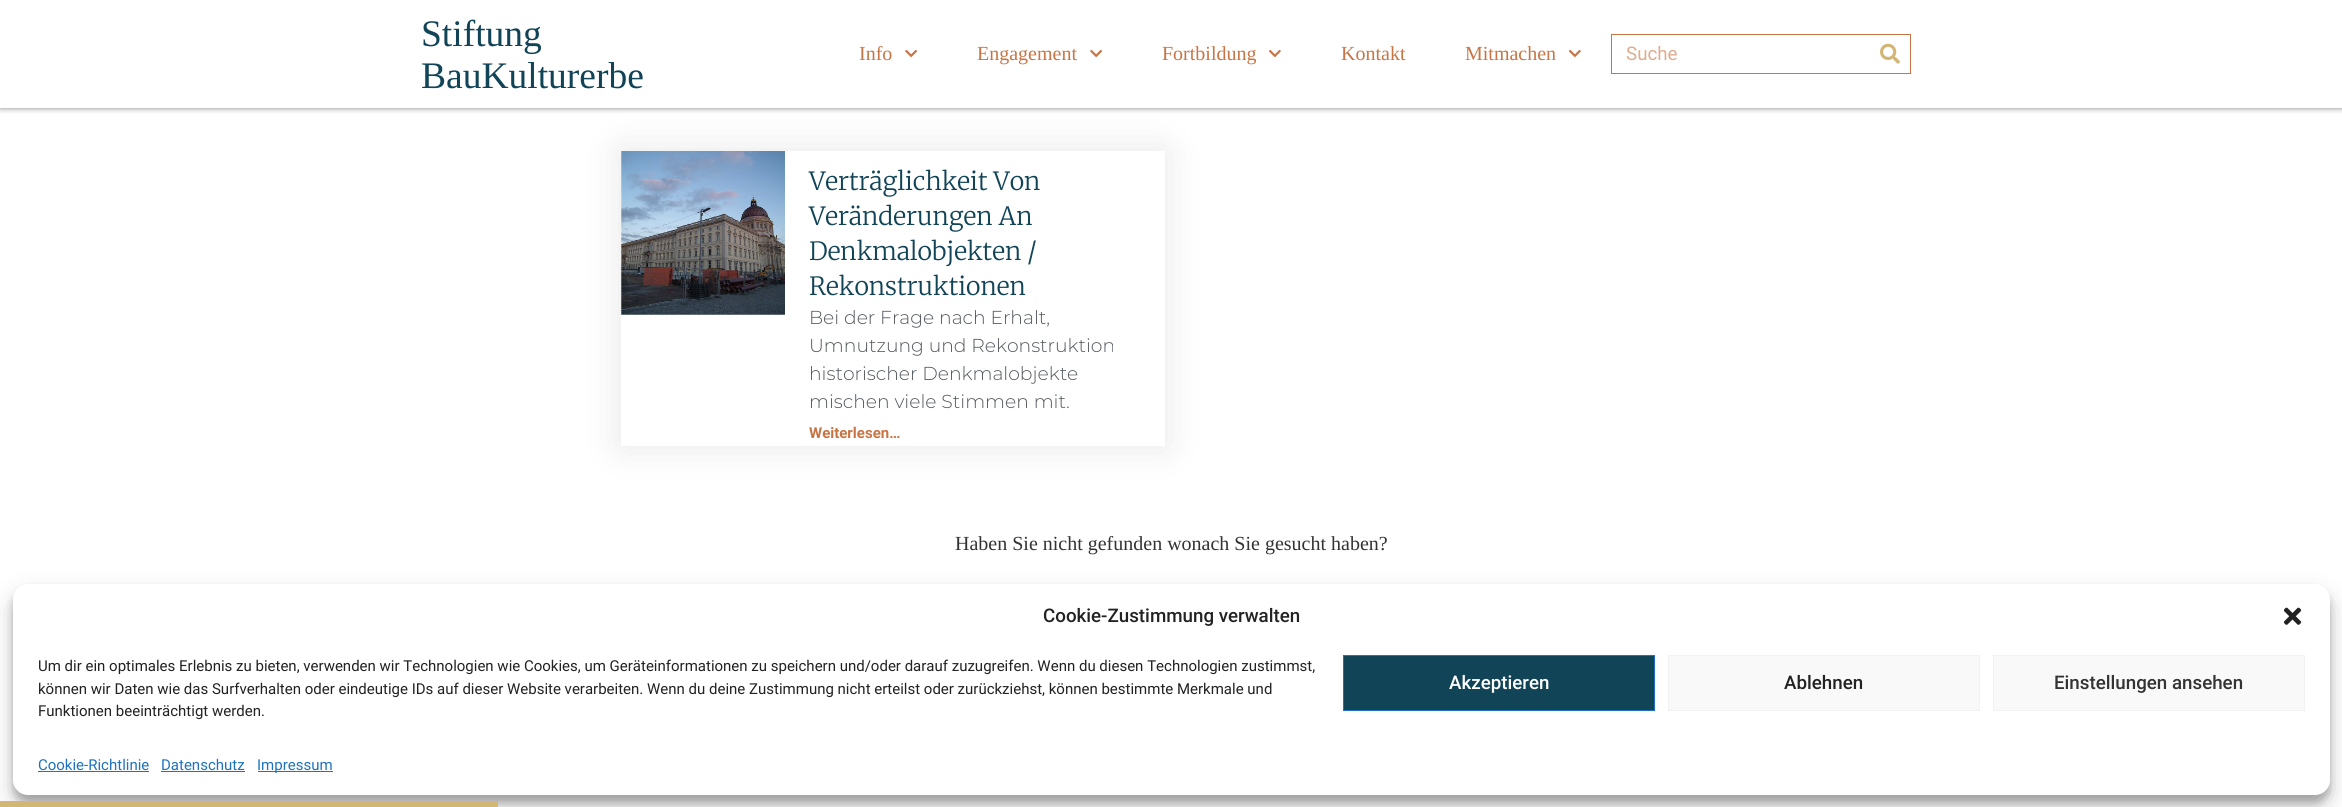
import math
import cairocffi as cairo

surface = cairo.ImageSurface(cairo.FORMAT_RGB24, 2342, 807)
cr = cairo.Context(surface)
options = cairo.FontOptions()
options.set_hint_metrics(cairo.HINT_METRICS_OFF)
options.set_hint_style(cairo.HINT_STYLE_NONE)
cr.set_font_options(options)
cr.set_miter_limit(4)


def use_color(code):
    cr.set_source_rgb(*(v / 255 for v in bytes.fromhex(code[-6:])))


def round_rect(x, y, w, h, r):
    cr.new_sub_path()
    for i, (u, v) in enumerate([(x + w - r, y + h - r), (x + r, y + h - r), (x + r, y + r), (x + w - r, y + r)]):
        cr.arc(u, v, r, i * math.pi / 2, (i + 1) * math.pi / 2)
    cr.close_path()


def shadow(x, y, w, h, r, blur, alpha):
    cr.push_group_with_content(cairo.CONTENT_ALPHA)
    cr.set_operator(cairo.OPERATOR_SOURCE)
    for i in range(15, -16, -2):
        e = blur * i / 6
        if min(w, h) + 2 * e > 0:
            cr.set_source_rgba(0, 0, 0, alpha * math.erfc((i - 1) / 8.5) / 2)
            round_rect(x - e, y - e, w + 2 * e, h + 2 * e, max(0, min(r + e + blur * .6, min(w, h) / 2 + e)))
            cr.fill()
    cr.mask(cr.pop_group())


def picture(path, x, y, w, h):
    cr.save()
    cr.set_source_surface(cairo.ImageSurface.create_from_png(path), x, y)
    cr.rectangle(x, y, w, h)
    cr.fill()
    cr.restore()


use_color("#ffffff")
cr.paint()
use_color("#000000")
shadow(0, 0, 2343, 108, 0, 3, 0.5)
cr.save()
cr.set_fill_rule(cairo.FILL_RULE_EVEN_ODD)
cr.new_path()
cr.move_to(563, 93)
cr.line_to(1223, 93)
cr.line_to(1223, 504)
cr.line_to(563, 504)
cr.close_path()
cr.move_to(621, 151)
cr.line_to(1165, 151)
cr.line_to(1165, 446)
cr.line_to(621, 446)
cr.close_path()
cr.clip()
shadow(621, 151, 544, 295, 0, 19, 0.1)
cr.restore()
use_color("#ffffff")
cr.rectangle(0, 0, 2342, 108)
cr.fill()
cr.select_font_face("Liberation Serif")
cr.set_font_size(37.5)
use_color("#114457")
cr.move_to(421, 46)
cr.show_text("Stiftung")
cr.move_to(421, 88)
cr.show_text("BauKulturerbe")
cr.set_font_size(20)
use_color("#c87444")
cr.move_to(859, 60)
cr.show_text("Info")
picture("img1.png", 905, 49, 12, 9)
cr.move_to(977, 60)
cr.show_text("Engagement")
picture("img1.png", 1090, 49, 12, 9)
cr.move_to(1162, 60)
cr.show_text("Fortbildung")
picture("img2.png", 1269, 49, 12, 9)
cr.move_to(1341, 60)
cr.show_text("Kontakt")
cr.move_to(1465, 60)
cr.show_text("Mitmachen")
picture("img2.png", 1569, 49, 12, 9)
cr.rectangle(1611.5, 34.5, 299, 39)
cr.set_line_width(1)
cr.stroke()
cr.select_font_face("Roboto")
cr.set_font_size(18.75)
use_color("#deac8f")
cr.move_to(1626, 60)
cr.show_text("Suche")
picture("img3.png", 1880, 43, 20, 21)
picture("img4.png", 621, 151, 164, 164)
cr.select_font_face("Merriweather Light")
cr.set_font_size(25)
use_color("#114457")
cr.move_to(809, 190)
cr.show_text("Verträglichkeit Von")
cr.move_to(809, 225)
cr.show_text("Veränderungen An")
cr.move_to(809, 260)
cr.show_text("Denkmalobjekten /")
cr.move_to(809, 295)
cr.show_text("Rekonstruktionen")
cr.select_font_face("Montserrat Light")
cr.set_font_size(18.75)
use_color("#54595f")
cr.move_to(809, 324)
cr.show_text("Bei der Frage nach Erhalt,")
cr.move_to(809, 352)
cr.show_text("Umnutzung und Rekonstruktion")
cr.move_to(809, 380)
cr.show_text("historischer Denkmalobjekte")
cr.move_to(809, 408)
cr.show_text("mischen viele Stimmen mit.")
cr.select_font_face("Roboto", cairo.FONT_SLANT_NORMAL, cairo.FONT_WEIGHT_BOLD)
cr.set_font_size(15)
use_color("#c87444")
cr.move_to(809, 438)
cr.show_text("Weiterlesen…")
cr.select_font_face("Liberation Serif")
cr.set_font_size(20)
use_color("#333333")
cr.move_to(955, 550)
cr.show_text("Haben Sie nicht gefunden wonach Sie gesucht haben?")
use_color("#000000")
shadow(13, 591, 2317, 212, 15, 4, 0.23)
shadow(13, 596, 2317, 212, 15, 12.5, 0.19)
use_color("#ffffff")
round_rect(13, 584, 2317, 211, 15)
cr.fill()
cr.select_font_face("Roboto Medium")
cr.set_font_size(18.75)
use_color("#222222")
cr.move_to(1043, 622)
cr.show_text("Cookie-Zustimmung verwalten")
picture("img5.png", 2283, 607, 19, 18)
cr.select_font_face("Roboto")
cr.set_font_size(15)
cr.move_to(38, 671)
cr.show_text("Um dir ein optimales Erlebnis zu bieten, verwenden wir Technologien wie Cookies, um Geräteinformationen zu speichern und/oder darauf zuzugreifen. Wenn du diesen Technologien zustimmst,")
cr.move_to(38, 694)
cr.show_text("können wir Daten wie das Surfverhalten oder eindeutige IDs auf dieser Website verarbeiten. Wenn du deine Zustimmung nicht erteilst oder zurückziehst, können bestimmte Merkmale und")
cr.move_to(38, 716)
cr.show_text("Funktionen beeinträchtigt werden.")
use_color("#114457")
cr.rectangle(1343.5, 655.5, 311, 55)
cr.fill_preserve()
use_color("#1e73be")
cr.stroke()
cr.select_font_face("Roboto Medium")
cr.set_font_size(18.75)
use_color("#ffffff")
cr.move_to(1449, 689)
cr.show_text("Akzeptieren")
use_color("#f9f9f9")
cr.rectangle(1668.5, 655.5, 311, 55)
cr.fill_preserve()
use_color("#f2f2f2")
cr.stroke()
use_color("#222222")
cr.move_to(1784, 689)
cr.show_text("Ablehnen")
use_color("#f9f9f9")
cr.rectangle(1993.5, 655.5, 311, 55)
cr.fill_preserve()
use_color("#f2f2f2")
cr.stroke()
use_color("#333333")
cr.move_to(2054, 689)
cr.show_text("Einstellungen ansehen")
cr.select_font_face("Roboto")
cr.set_font_size(15)
use_color("#1e73be")
cr.move_to(38, 770)
cr.show_text("Cookie-Richtlinie")
cr.rectangle(38, 771, 111, 1)
cr.fill()
cr.move_to(161, 770)
cr.show_text("Datenschutz")
cr.rectangle(161, 771, 84, 1)
cr.fill()
cr.rectangle(258, 771, 75, 1)
cr.fill()
cr.move_to(257, 770)
cr.show_text("Impressum")
use_color("#d3b574")
cr.rectangle(0, 801, 498, 6)
cr.fill()
surface.write_to_png("result.png")
